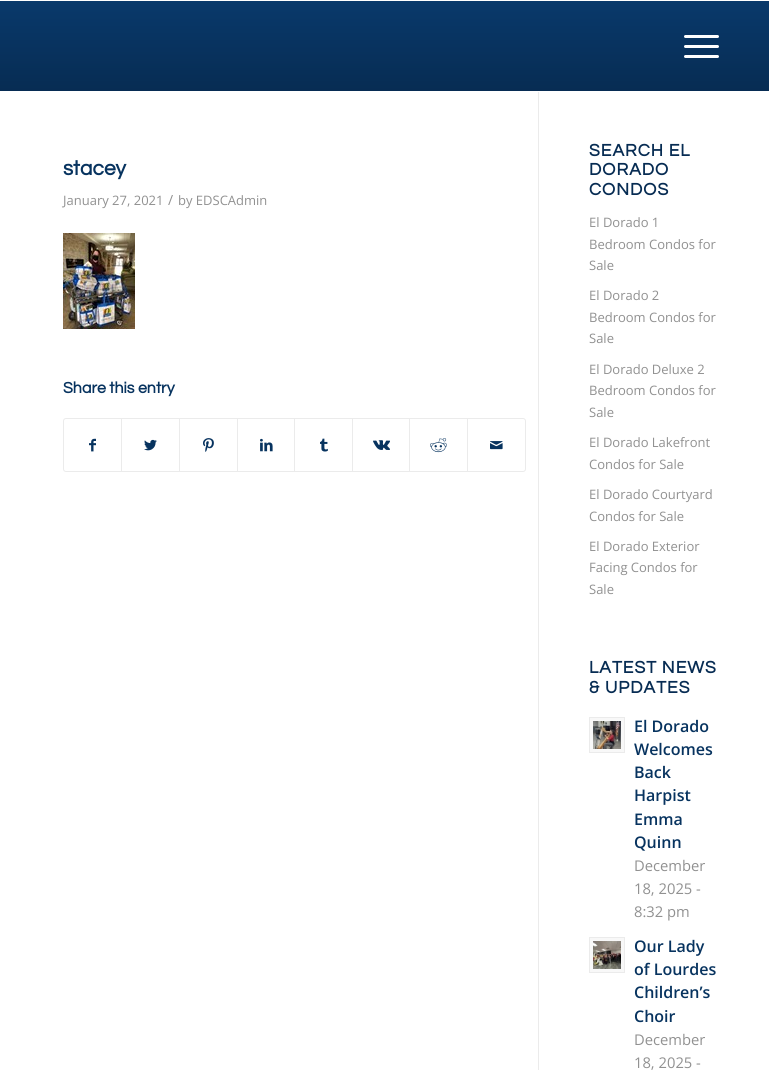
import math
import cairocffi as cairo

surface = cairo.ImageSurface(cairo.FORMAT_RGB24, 769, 1070)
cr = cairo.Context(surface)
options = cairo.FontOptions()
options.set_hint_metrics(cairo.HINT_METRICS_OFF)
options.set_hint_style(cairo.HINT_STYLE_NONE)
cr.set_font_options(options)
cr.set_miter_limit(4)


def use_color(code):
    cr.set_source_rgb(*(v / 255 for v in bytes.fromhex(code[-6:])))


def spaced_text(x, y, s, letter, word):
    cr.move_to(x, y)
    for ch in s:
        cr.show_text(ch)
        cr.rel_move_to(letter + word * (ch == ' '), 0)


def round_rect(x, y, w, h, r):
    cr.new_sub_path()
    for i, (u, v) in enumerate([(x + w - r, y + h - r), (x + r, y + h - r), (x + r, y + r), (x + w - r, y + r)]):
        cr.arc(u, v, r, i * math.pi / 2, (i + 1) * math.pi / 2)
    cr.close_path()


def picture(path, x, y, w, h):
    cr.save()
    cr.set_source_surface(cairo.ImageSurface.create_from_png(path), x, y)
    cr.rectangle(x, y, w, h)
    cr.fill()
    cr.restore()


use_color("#ffffff")
cr.paint()
gradient = cairo.LinearGradient(385, 1, 385, 91)
gradient.add_color_stop_rgba(0, 0.035, 0.224, 0.42, 1)
gradient.add_color_stop_rgba(1, 0.027, 0.173, 0.325, 1)
cr.set_source(gradient)
cr.rectangle(0, 1, 769, 90)
cr.fill()
use_color("#ffffff")
round_rect(684, 45, 35, 3, 1.5)
cr.fill()
round_rect(684, 35, 35, 3, 1.5)
cr.fill()
round_rect(684, 55, 35, 3, 1.5)
cr.fill()
cr.select_font_face("Questrial", cairo.FONT_SLANT_NORMAL, cairo.FONT_WEIGHT_BOLD)
cr.set_font_size(21)
use_color("#07335f")
cr.move_to(63, 175)
cr.show_text("stacey")
cr.select_font_face("Open Sans")
cr.set_font_size(13)
use_color("#919191")
cr.move_to(63, 205)
cr.show_text("January 27, 2021")
cr.set_font_size(14)
cr.move_to(168, 205)
cr.show_text("/")
cr.set_font_size(13)
cr.move_to(178, 205)
cr.show_text("by EDSCAdmin")
picture("img1.png", 63, 233, 72, 96)
cr.select_font_face("Questrial", cairo.FONT_SLANT_NORMAL, cairo.FONT_WEIGHT_BOLD)
cr.set_font_size(16)
use_color("#07335f")
cr.move_to(63, 393)
cr.show_text("Share this entry")
round_rect(63.5, 418.5, 462, 53, 2.5)
use_color("#ebebeb")
cr.set_line_width(1)
cr.stroke()
picture("img2.png", 89, 438, 7, 14)
cr.rectangle(121, 419, 1, 52)
cr.fill()
picture("img3.png", 144, 439, 13, 12)
cr.rectangle(179, 419, 1, 52)
cr.fill()
picture("img4.png", 203, 438, 11, 14)
cr.rectangle(237, 419, 1, 52)
cr.fill()
picture("img5.png", 260, 438, 13, 14)
cr.rectangle(294, 419, 1, 52)
cr.fill()
picture("img6.png", 320, 438, 8, 14)
cr.rectangle(352, 419, 1, 52)
cr.fill()
picture("img7.png", 373, 440, 17, 10)
cr.rectangle(409, 419, 1, 52)
cr.fill()
picture("img8.png", 430, 438, 17, 15)
cr.rectangle(467, 419, 1, 52)
cr.fill()
picture("img9.png", 490, 441, 13, 9)
cr.rectangle(538, 92, 1, 978)
cr.fill()
cr.set_font_size(17.5)
use_color("#072c53")
spaced_text(589, 156, "SEARCH EL", 1, 0)
spaced_text(589, 175, "DORADO", 1, 0)
spaced_text(589, 195, "CONDOS", 1, 0)
cr.select_font_face("Open Sans")
cr.set_font_size(13)
use_color("#919191")
cr.move_to(589, 227)
cr.show_text("El Dorado 1")
cr.move_to(589, 249)
cr.show_text("Bedroom Condos for")
cr.move_to(589, 270)
cr.show_text("Sale")
cr.move_to(589, 300)
cr.show_text("El Dorado 2")
cr.move_to(589, 322)
cr.show_text("Bedroom Condos for")
cr.move_to(589, 343)
cr.show_text("Sale")
cr.move_to(589, 374)
cr.show_text("El Dorado Deluxe 2")
cr.move_to(589, 395)
cr.show_text("Bedroom Condos for")
cr.move_to(589, 417)
cr.show_text("Sale")
cr.move_to(589, 447)
cr.show_text("El Dorado Lakefront")
cr.move_to(589, 469)
cr.show_text("Condos for Sale")
cr.move_to(589, 499)
cr.show_text("El Dorado Courtyard")
cr.move_to(589, 521)
cr.show_text("Condos for Sale")
cr.move_to(589, 551)
cr.show_text("El Dorado Exterior")
cr.move_to(589, 572)
cr.show_text("Facing Condos for")
cr.move_to(589, 594)
cr.show_text("Sale")
cr.select_font_face("Questrial", cairo.FONT_SLANT_NORMAL, cairo.FONT_WEIGHT_BOLD)
cr.set_font_size(17.5)
use_color("#072c53")
spaced_text(589, 673, "LATEST NEWS", 1, 0)
spaced_text(589, 693, "& UPDATES", 1, 0)
use_color("#f8f8f8")
cr.rectangle(589.5, 717.5, 35, 35)
cr.fill_preserve()
use_color("#ebebeb")
cr.stroke()
picture("img10.png", 593, 721, 28, 28)
cr.select_font_face("Open Sans SemiBold")
cr.set_font_size(16)
use_color("#07335f")
cr.move_to(634, 732)
cr.show_text("El Dorado")
cr.move_to(634, 755)
cr.show_text("Welcomes")
cr.move_to(634, 778)
cr.show_text("Back")
cr.move_to(634, 801)
cr.show_text("Harpist")
cr.move_to(634, 825)
cr.show_text("Emma")
cr.move_to(634, 848)
cr.show_text("Quinn")
cr.select_font_face("Open Sans")
cr.set_font_size(14.75)
use_color("#919191")
cr.move_to(634, 871)
cr.show_text("December")
cr.move_to(634, 894)
cr.show_text("18, 2025 -")
cr.move_to(634, 917)
cr.show_text("8:32 pm")
use_color("#f8f8f8")
cr.rectangle(589.5, 937.5, 35, 35)
cr.fill_preserve()
use_color("#ebebeb")
cr.stroke()
picture("img11.png", 593, 941, 28, 28)
cr.select_font_face("Open Sans SemiBold")
cr.set_font_size(16)
use_color("#07335f")
cr.move_to(634, 952)
cr.show_text("Our Lady")
cr.move_to(634, 975)
cr.show_text("of Lourdes")
cr.move_to(634, 998)
cr.show_text("Children’s")
cr.move_to(634, 1022)
cr.show_text("Choir")
cr.select_font_face("Open Sans")
cr.set_font_size(14.75)
use_color("#919191")
cr.move_to(634, 1045)
cr.show_text("December")
cr.move_to(634, 1068)
cr.show_text("18, 2025 -")
surface.write_to_png("result.png")
